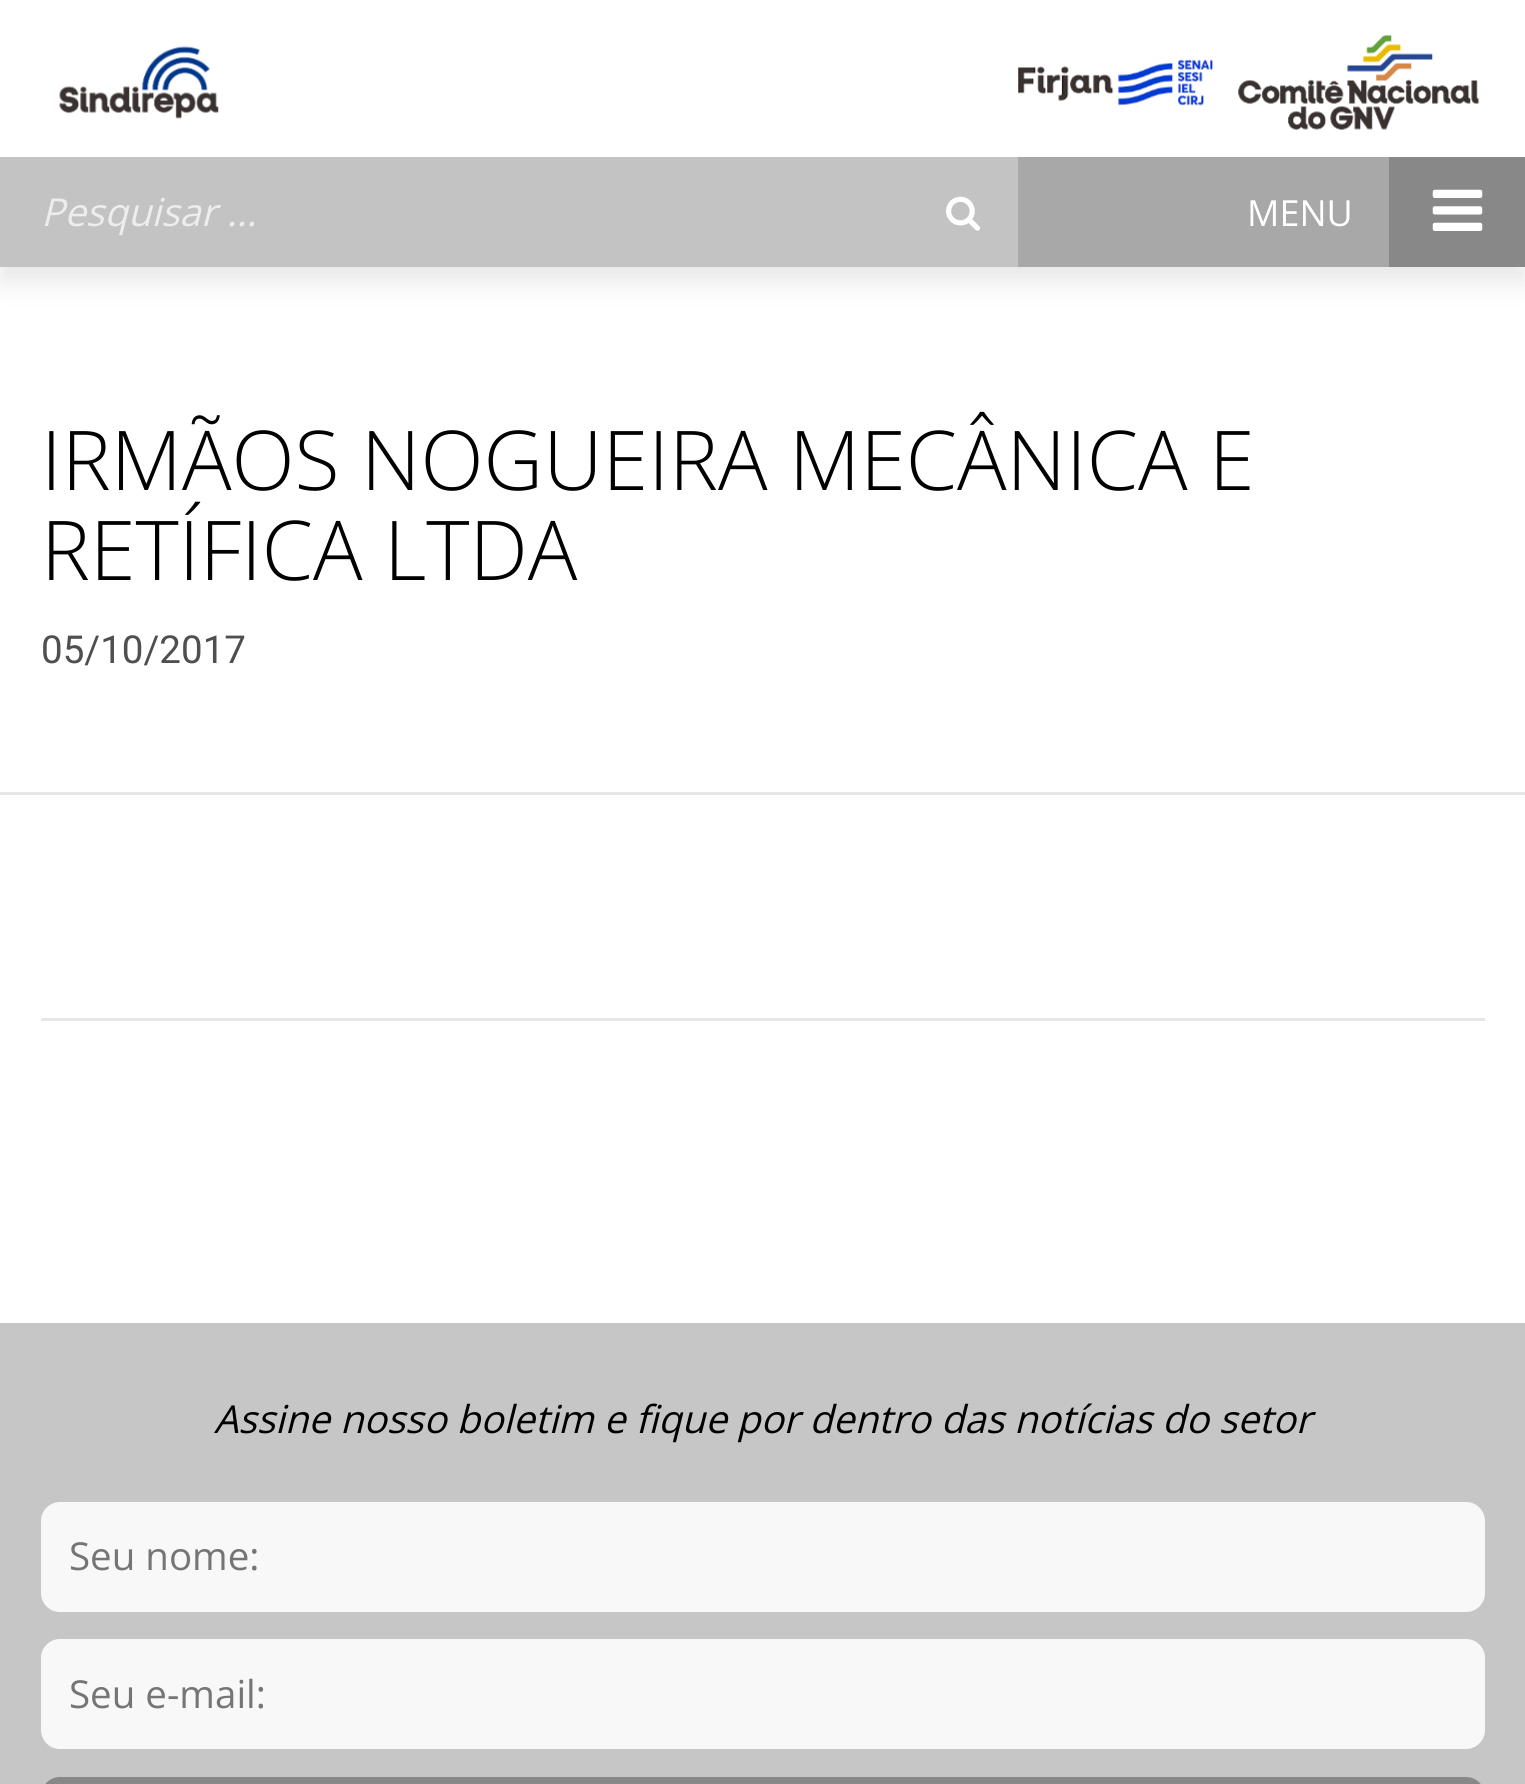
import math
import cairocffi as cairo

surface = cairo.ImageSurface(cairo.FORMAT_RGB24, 1525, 1784)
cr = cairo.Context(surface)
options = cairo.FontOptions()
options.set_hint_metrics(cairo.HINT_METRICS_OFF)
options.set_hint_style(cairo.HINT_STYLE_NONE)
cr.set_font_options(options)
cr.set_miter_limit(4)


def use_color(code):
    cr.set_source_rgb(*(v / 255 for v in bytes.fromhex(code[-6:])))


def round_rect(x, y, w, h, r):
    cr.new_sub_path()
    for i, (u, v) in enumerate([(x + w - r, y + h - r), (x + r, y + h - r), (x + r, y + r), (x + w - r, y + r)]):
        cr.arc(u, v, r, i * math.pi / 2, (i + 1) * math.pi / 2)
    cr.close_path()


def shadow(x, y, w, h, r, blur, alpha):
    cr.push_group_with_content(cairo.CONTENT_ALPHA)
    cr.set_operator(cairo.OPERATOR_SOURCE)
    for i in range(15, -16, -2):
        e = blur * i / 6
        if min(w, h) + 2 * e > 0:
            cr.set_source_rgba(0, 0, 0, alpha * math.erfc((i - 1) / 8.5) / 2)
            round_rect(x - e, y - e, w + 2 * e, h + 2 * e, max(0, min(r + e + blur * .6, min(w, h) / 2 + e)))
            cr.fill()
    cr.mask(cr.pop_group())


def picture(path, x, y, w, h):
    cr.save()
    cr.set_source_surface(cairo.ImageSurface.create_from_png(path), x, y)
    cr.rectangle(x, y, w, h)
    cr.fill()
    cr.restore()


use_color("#ffffff")
cr.paint()
use_color("#000000")
shadow(0, 14, 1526, 267, 0, 14, 0.1)
use_color("#ffffff")
cr.rectangle(0, 0, 1525, 157)
cr.fill()
picture("img1.png", 59, 46, 160, 73)
picture("img2.png", 1018, 59, 196, 47)
picture("img3.png", 1238, 35, 242, 95)
use_color("#c3c3c3")
cr.rectangle(0, 157, 1018, 110)
cr.fill()
cr.select_font_face("Open Sans", cairo.FONT_SLANT_ITALIC)
cr.set_font_size(38.5)
use_color("#ededed")
cr.move_to(41, 226)
cr.show_text("Pesquisar …")
picture("img4.png", 946, 196, 34, 35)
use_color("#a8a8a8")
cr.rectangle(1018, 157, 371, 110)
cr.fill()
cr.select_font_face("Open Sans")
cr.set_font_size(36)
use_color("#ffffff")
cr.move_to(1247, 226)
cr.show_text("MENU")
use_color("#888888")
cr.rectangle(1389, 157, 136, 110)
cr.fill()
picture("img5.png", 1432, 189, 51, 42)
use_color("#e6e6e6")
cr.rectangle(0, 792, 1525, 3)
cr.fill()
cr.select_font_face("Open Sans Light")
cr.set_font_size(82.5)
use_color("#000000")
cr.move_to(41, 490)
cr.show_text("IRMÃOS NOGUEIRA MECÂNICA E")
cr.move_to(41, 580)
cr.show_text("RETÍFICA LTDA")
cr.select_font_face("Heebo")
cr.set_font_size(38.5)
use_color("#4f4f4f")
cr.move_to(41, 663)
cr.show_text("05/10/2017")
use_color("#e6e6e6")
cr.rectangle(41, 1018, 1444, 3)
cr.fill()
use_color("#c6c6c6")
cr.rectangle(0, 1323, 1525, 461)
cr.fill()
cr.select_font_face("Open Sans", cairo.FONT_SLANT_ITALIC)
use_color("#000000")
cr.move_to(214, 1433)
cr.show_text("Assine nosso boletim e fique por dentro das notícias do setor")
use_color("#f8f8f8")
round_rect(41, 1502, 1444, 110, 19)
cr.fill()
cr.select_font_face("Open Sans")
use_color("#757575")
cr.move_to(69, 1570)
cr.show_text("Seu nome:")
use_color("#f8f8f8")
round_rect(41, 1639, 1444, 110, 19)
cr.fill()
use_color("#757575")
cr.move_to(69, 1708)
cr.show_text("Seu e-mail:")
use_color("#888888")
round_rect(41, 1777, 1444, 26, 19)
cr.fill()
surface.write_to_png("result.png")
